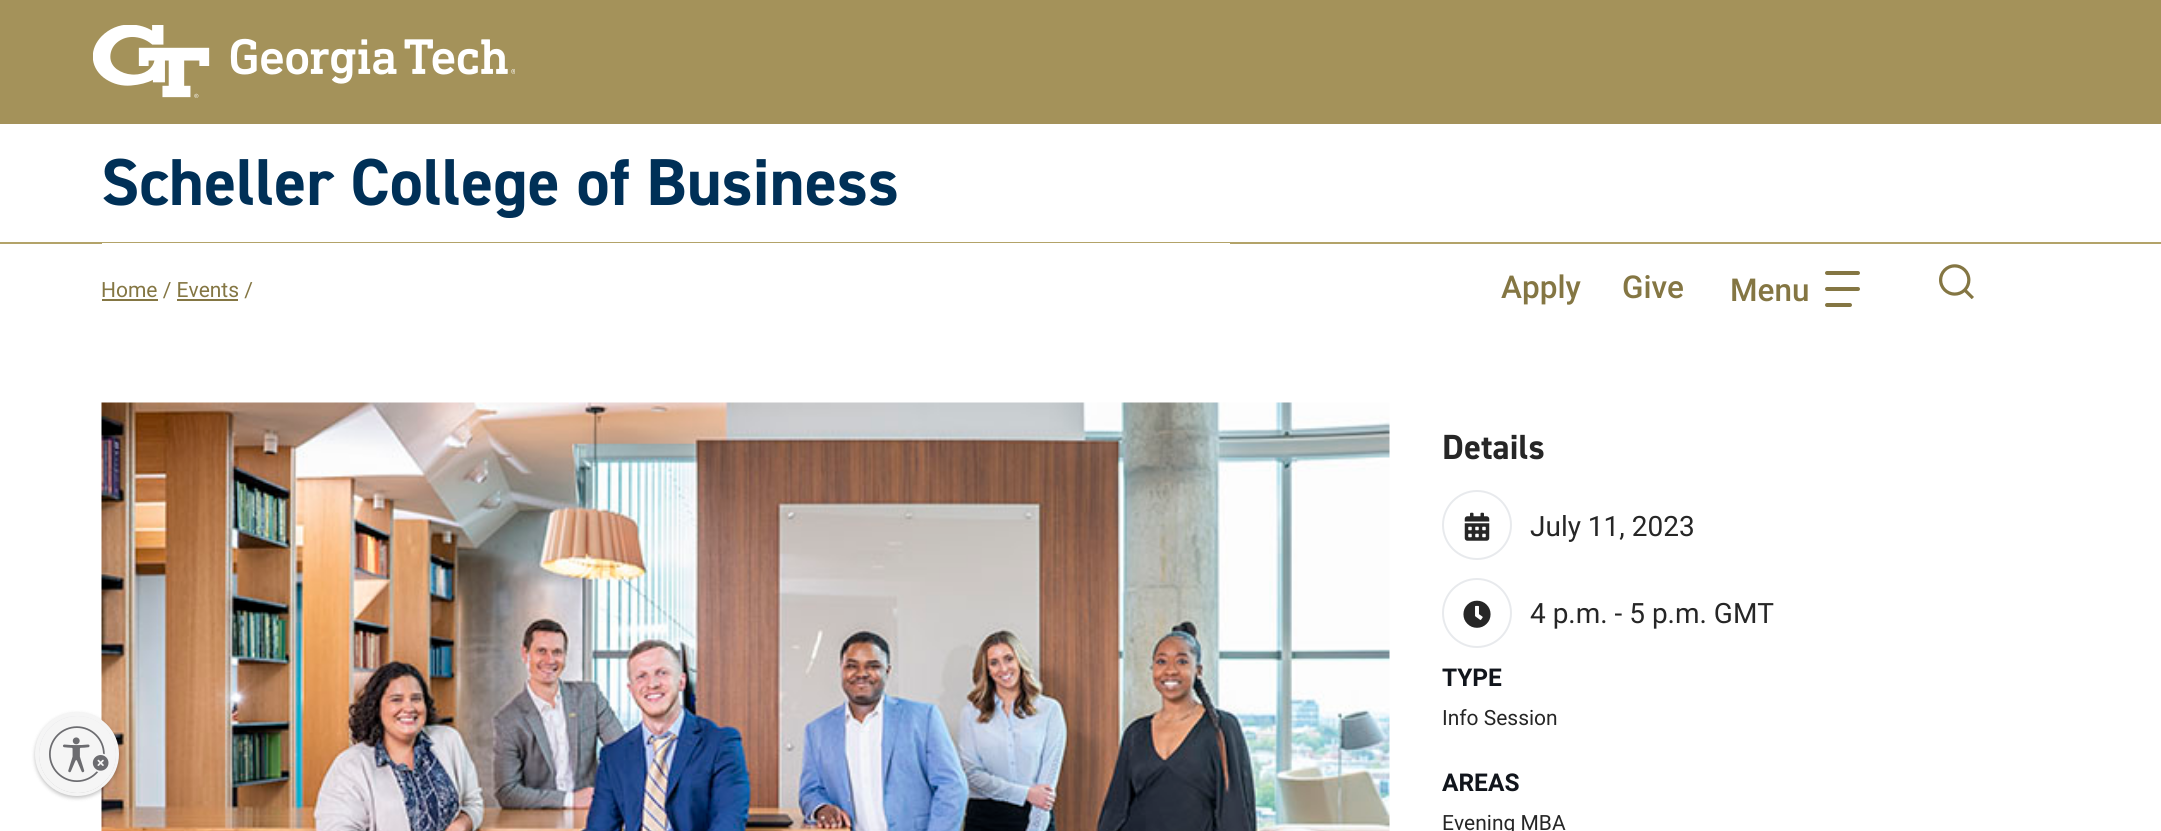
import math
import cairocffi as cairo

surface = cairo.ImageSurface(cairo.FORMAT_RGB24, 2161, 831)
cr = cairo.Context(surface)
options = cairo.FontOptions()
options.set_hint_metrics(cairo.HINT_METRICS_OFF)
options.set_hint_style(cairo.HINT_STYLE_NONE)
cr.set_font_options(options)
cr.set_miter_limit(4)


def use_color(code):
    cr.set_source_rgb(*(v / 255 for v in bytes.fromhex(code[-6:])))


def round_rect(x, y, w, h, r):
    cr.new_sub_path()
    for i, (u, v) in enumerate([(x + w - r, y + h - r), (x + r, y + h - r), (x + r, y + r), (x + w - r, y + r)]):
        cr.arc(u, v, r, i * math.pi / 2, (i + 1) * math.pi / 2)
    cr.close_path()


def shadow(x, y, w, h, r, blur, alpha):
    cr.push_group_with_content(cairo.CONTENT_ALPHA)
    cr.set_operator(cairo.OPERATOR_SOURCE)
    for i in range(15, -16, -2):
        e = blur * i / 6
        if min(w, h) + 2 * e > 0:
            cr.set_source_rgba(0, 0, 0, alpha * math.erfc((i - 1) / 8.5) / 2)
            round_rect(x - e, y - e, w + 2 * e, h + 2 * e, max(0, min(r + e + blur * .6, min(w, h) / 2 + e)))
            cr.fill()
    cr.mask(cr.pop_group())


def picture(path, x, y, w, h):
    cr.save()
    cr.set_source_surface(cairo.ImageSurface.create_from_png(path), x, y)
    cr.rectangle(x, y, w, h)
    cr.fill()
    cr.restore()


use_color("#ffffff")
cr.paint()
use_color("#a4925a")
cr.rectangle(0, 0, 2161, 124)
cr.fill()
picture("img1.png", 93, 25, 422, 73)
cr.select_font_face("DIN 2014", cairo.FONT_SLANT_NORMAL, cairo.FONT_WEIGHT_BOLD)
cr.set_font_size(66.5)
use_color("#003057")
cr.move_to(101, 205)
cr.show_text("Scheller College of Business")
use_color("#b3a369")
cr.rectangle(0, 242, 2161, 2)
cr.fill()
use_color("#ffffff")
cr.rectangle(102, 243, 1128, 1)
cr.fill()
cr.select_font_face("Roboto")
cr.set_font_size(21)
use_color("#847643")
cr.move_to(101, 297)
cr.show_text("Home / Events /")
cr.rectangle(102, 299, 56, 2)
cr.fill()
cr.rectangle(177, 299, 61, 2)
cr.fill()
cr.select_font_face("Roboto Medium")
cr.set_font_size(31.5)
cr.move_to(1501, 298)
cr.show_text("Apply")
cr.move_to(1622, 298)
cr.show_text("Give")
round_rect(1825, 271, 35, 4, 2)
cr.fill()
cr.move_to(1730, 301)
cr.show_text("Menu")
round_rect(1825, 287, 35, 4, 2)
cr.fill()
round_rect(1825, 303, 27, 4, 2)
cr.fill()
picture("img2.png", 1939, 264, 35, 35)
picture("img4.png", 101, 402, 1289, 429)
use_color("#000000")
shadow(35, 714, 84, 84, 42, 2, 0.24)
use_color("#ebebf0")
cr.arc(77, 754, 40, 0, 2 * math.pi)
cr.fill_preserve()
use_color("#f5f5f5")
cr.set_line_width(4)
cr.stroke()
cr.save()
round_rect(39, 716, 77, 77, 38.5)
cr.clip()
use_color("#000000")
shadow(39, 718, 77, 77, 38.5, 2, 0.24)
cr.restore()
cr.arc(77.5, 754.5, 38.5, 0, 2 * math.pi)
cr.fill()
picture("img3.png", 49, 726, 60, 56)
cr.select_font_face("DIN 2014", cairo.FONT_SLANT_NORMAL, cairo.FONT_WEIGHT_BOLD)
cr.set_font_size(35)
use_color("#262626")
cr.move_to(1442, 459)
cr.show_text("Details")
cr.new_path()
cr.arc(1477, 525, 34, 0, 2 * math.pi)
use_color("#e8eaed")
cr.set_line_width(2)
cr.stroke()
picture("img5.png", 1464, 512, 26, 29)
cr.select_font_face("Roboto")
cr.set_font_size(28)
use_color("#262626")
cr.move_to(1530, 536)
cr.show_text("July 11, 2023")
cr.new_path()
cr.arc(1477, 613, 34, 0, 2 * math.pi)
use_color("#e8eaed")
cr.stroke()
picture("img6.png", 1463, 600, 28, 28)
use_color("#262626")
cr.move_to(1530, 623)
cr.show_text("4 p.m. - 5 p.m. GMT")
cr.select_font_face("Roboto", cairo.FONT_SLANT_NORMAL, cairo.FONT_WEIGHT_BOLD)
cr.set_font_size(24.5)
use_color("#11151c")
cr.move_to(1442, 686)
cr.show_text("TYPE")
cr.select_font_face("Roboto")
cr.set_font_size(21)
use_color("#262626")
cr.move_to(1442, 725)
cr.show_text("Info Session")
cr.select_font_face("Roboto", cairo.FONT_SLANT_NORMAL, cairo.FONT_WEIGHT_BOLD)
cr.set_font_size(24.5)
use_color("#11151c")
cr.move_to(1442, 791)
cr.show_text("AREAS")
cr.select_font_face("Roboto")
cr.set_font_size(21)
use_color("#262626")
cr.move_to(1442, 830)
cr.show_text("Evening MBA")
surface.write_to_png("result.png")
